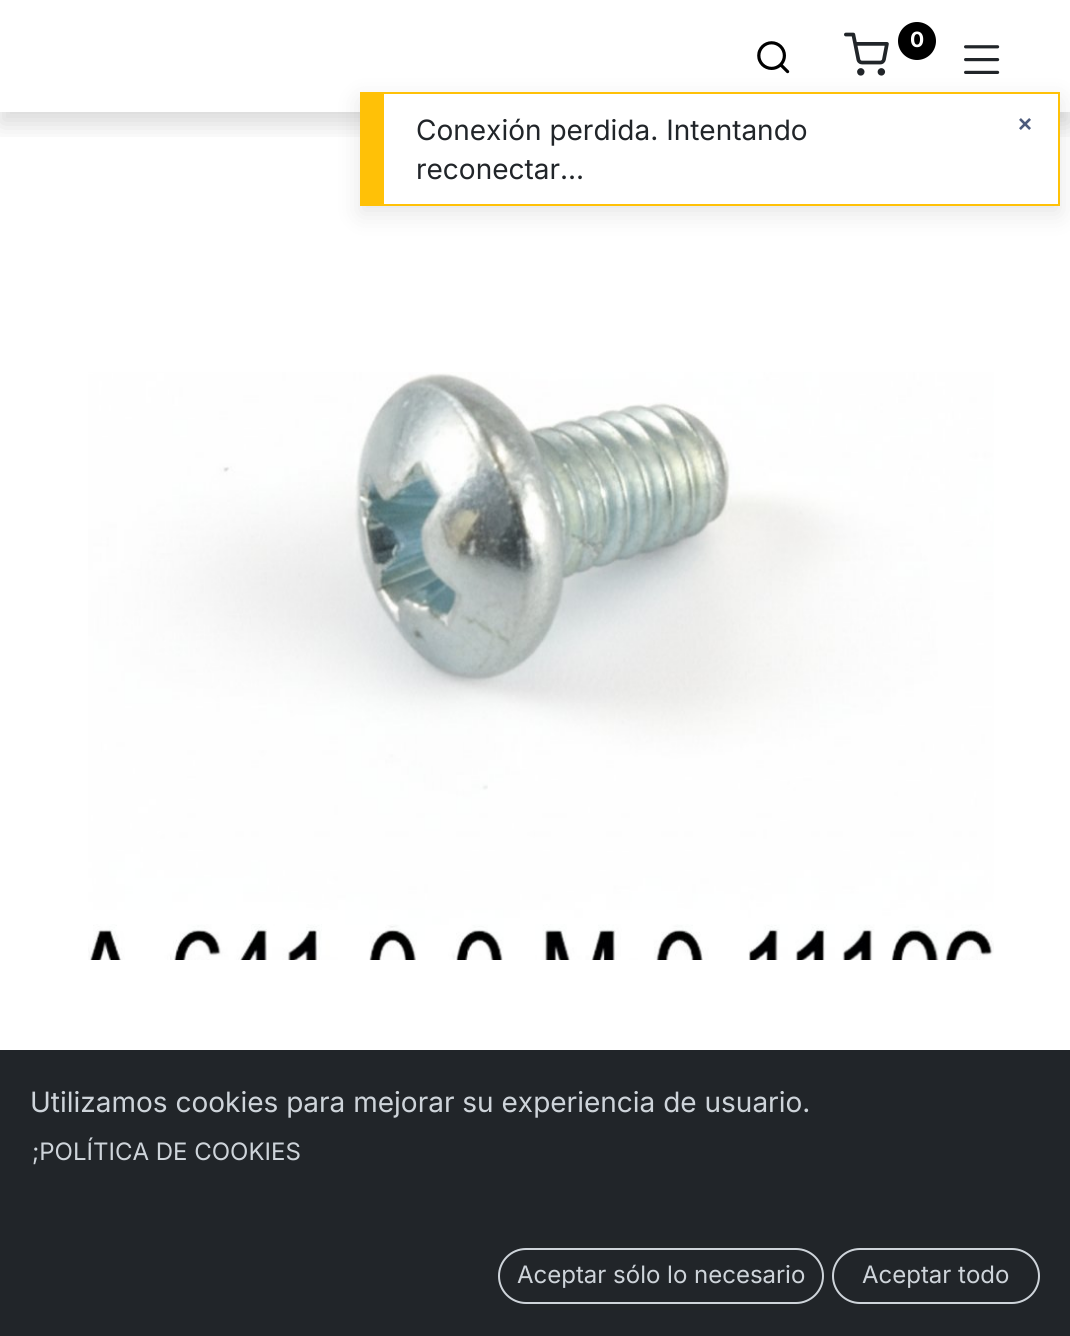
import math
import cairocffi as cairo

surface = cairo.ImageSurface(cairo.FORMAT_RGB24, 1070, 1336)
cr = cairo.Context(surface)
options = cairo.FontOptions()
options.set_hint_metrics(cairo.HINT_METRICS_OFF)
options.set_hint_style(cairo.HINT_STYLE_NONE)
cr.set_font_options(options)
cr.set_miter_limit(4)


def use_color(code):
    cr.set_source_rgb(*(v / 255 for v in bytes.fromhex(code[-6:])))


def round_rect(x, y, w, h, r):
    cr.new_sub_path()
    for i, (u, v) in enumerate([(x + w - r, y + h - r), (x + r, y + h - r), (x + r, y + r), (x + w - r, y + r)]):
        cr.arc(u, v, r, i * math.pi / 2, (i + 1) * math.pi / 2)
    cr.close_path()


def shadow(x, y, w, h, r, blur, alpha):
    cr.push_group_with_content(cairo.CONTENT_ALPHA)
    cr.set_operator(cairo.OPERATOR_SOURCE)
    for i in range(15, -16, -2):
        e = blur * i / 6
        if min(w, h) + 2 * e > 0:
            cr.set_source_rgba(0, 0, 0, alpha * math.erfc((i - 1) / 8.5) / 2)
            round_rect(x - e, y - e, w + 2 * e, h + 2 * e, max(0, min(r + e + blur * .6, min(w, h) / 2 + e)))
            cr.fill()
    cr.mask(cr.pop_group())


def picture(path, x, y, w, h):
    cr.save()
    cr.set_source_surface(cairo.ImageSurface.create_from_png(path), x, y)
    cr.rectangle(x, y, w, h)
    cr.fill()
    cr.restore()


use_color("#ffffff")
cr.paint()
cr.save()
cr.rectangle(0, 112, 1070, 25)
cr.clip()
use_color("#000000")
shadow(0, 12, 1070, 112, 0, 12, 0.15)
cr.restore()
picture("img1.png", 757, 41, 33, 33)
picture("img2.png", 844, 32, 45, 44)
use_color("#000000")
cr.arc(917, 41, 19, 0, 2 * math.pi)
cr.fill()
cr.select_font_face("Inter", cairo.FONT_SLANT_NORMAL, cairo.FONT_WEIGHT_BOLD)
cr.set_font_size(21)
use_color("#ffffff")
cr.move_to(910, 47)
cr.show_text("0")
picture("img3.png", 964, 45, 36, 29)
picture("img4.png", 88, 372, 906, 588)
use_color("#212529")
cr.rectangle(0, 1050, 1070, 286)
cr.fill()
cr.select_font_face("Inter")
cr.set_font_size(28)
use_color("#ced4da")
cr.move_to(30, 1112)
cr.show_text("Utilizamos cookies para mejorar su experiencia de usuario.")
cr.set_font_size(24)
cr.move_to(32, 1160)
cr.show_text(";POLÍTICA DE COOKIES")
round_rect(499, 1249, 324, 54, 27)
cr.stroke()
cr.move_to(517, 1283)
cr.show_text("Aceptar sólo lo necesario")
round_rect(833, 1249, 206, 54, 27)
cr.stroke()
cr.move_to(862, 1283)
cr.show_text("Aceptar todo")
use_color("#000000")
shadow(360, 100, 700, 114, 0, 12, 0.1)
use_color("#ffffff")
cr.rectangle(384, 94, 674, 110)
cr.fill()
use_color("#ffc107")
cr.rectangle(384, 92, 676, 2)
cr.fill()
cr.rectangle(1058, 92, 2, 114)
cr.fill()
cr.rectangle(384, 204, 676, 2)
cr.fill()
cr.rectangle(360, 92, 24, 114)
cr.fill()
cr.set_font_size(28)
use_color("#212529")
cr.move_to(416, 140)
cr.show_text("Conexión perdida. Intentando")
cr.move_to(416, 179)
cr.show_text("reconectar...")
cr.select_font_face("Liberation Sans", cairo.FONT_SLANT_NORMAL, cairo.FONT_WEIGHT_BOLD)
cr.set_font_size(24)
use_color("#4d5b7c")
cr.move_to(1018, 132)
cr.show_text("×")
surface.write_to_png("result.png")
